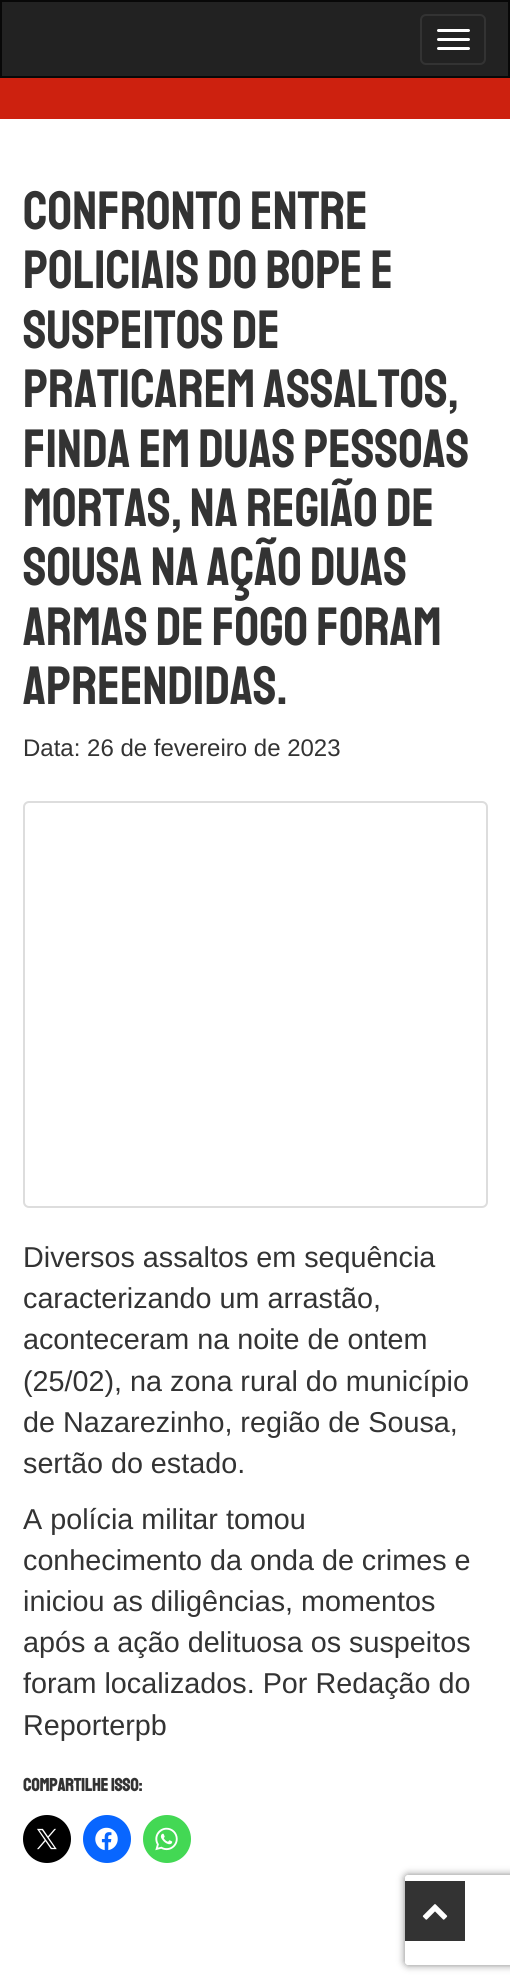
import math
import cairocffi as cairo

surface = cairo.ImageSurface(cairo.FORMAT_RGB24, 510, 1985)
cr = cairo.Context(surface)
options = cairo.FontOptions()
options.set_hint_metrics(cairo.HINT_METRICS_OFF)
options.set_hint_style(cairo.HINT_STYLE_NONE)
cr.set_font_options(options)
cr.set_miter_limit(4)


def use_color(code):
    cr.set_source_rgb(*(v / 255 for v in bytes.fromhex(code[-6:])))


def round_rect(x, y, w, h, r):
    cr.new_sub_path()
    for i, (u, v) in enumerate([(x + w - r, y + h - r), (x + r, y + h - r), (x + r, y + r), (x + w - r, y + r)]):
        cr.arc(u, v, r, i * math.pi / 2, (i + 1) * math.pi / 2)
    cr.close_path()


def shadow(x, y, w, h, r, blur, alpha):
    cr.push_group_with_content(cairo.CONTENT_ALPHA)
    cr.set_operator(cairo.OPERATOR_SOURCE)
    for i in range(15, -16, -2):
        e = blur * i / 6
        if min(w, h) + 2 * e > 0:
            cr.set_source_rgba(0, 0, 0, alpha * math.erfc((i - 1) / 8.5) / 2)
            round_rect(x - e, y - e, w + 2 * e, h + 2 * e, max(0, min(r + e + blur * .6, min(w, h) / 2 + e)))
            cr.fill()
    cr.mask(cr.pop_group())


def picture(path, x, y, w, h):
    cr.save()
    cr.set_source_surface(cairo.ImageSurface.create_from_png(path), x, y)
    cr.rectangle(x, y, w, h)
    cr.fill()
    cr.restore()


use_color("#cd210f")
cr.paint()
use_color("#222222")
cr.rectangle(1, 1, 508, 76)
cr.fill_preserve()
use_color("#080808")
cr.stroke()
round_rect(421, 15, 64, 49, 5)
use_color("#333333")
cr.stroke()
use_color("#ffffff")
round_rect(437, 29, 33, 3, 1.5)
cr.fill()
round_rect(437, 38, 33, 3, 1.5)
cr.fill()
round_rect(437, 47, 33, 3, 1.5)
cr.fill()
cr.rectangle(0, 119, 510, 1866)
cr.fill()
cr.select_font_face("Staatliches")
cr.set_font_size(54)
use_color("#333333")
cr.move_to(23, 229)
cr.show_text("Confronto entre")
cr.move_to(23, 288)
cr.show_text("policiais do BOPE e")
cr.move_to(23, 348)
cr.show_text("suspeitos de")
cr.move_to(23, 407)
cr.show_text("praticarem assaltos,")
cr.move_to(23, 467)
cr.show_text("finda em duas pessoas")
cr.move_to(23, 526)
cr.show_text("mortas, na região de")
cr.move_to(23, 585)
cr.show_text("Sousa Na ação duas")
cr.move_to(23, 645)
cr.show_text("armas de fogo foram")
cr.move_to(23, 704)
cr.show_text("apreendidas.")
cr.select_font_face("Liberation Sans")
cr.set_font_size(24)
cr.move_to(23, 756)
cr.show_text("Data: 26 de fevereiro de 2023")
round_rect(24, 802, 463, 405, 5)
use_color("#dddddd")
cr.stroke()
cr.set_font_size(28.75)
use_color("#333333")
cr.move_to(23, 1267)
cr.show_text("Diversos assaltos em sequência")
cr.move_to(23, 1308)
cr.show_text("caracterizando um arrastão,")
cr.move_to(23, 1349)
cr.show_text("aconteceram na noite de ontem")
cr.move_to(23, 1391)
cr.show_text("(25/02), na zona rural do município")
cr.move_to(23, 1432)
cr.show_text("de Nazarezinho, região de Sousa,")
cr.move_to(23, 1473)
cr.show_text("sertão do estado.")
cr.move_to(23, 1529)
cr.show_text("A polícia militar tomou")
cr.move_to(23, 1570)
cr.show_text("conhecimento da onda de crimes e")
cr.move_to(23, 1611)
cr.show_text("iniciou as diligências, momentos")
cr.move_to(23, 1652)
cr.show_text("após a ação delituosa os suspeitos")
cr.move_to(23, 1693)
cr.show_text("foram localizados. Por Redação do")
cr.move_to(23, 1735)
cr.show_text("Reporterpb")
cr.select_font_face("Staatliches", cairo.FONT_SLANT_NORMAL, cairo.FONT_WEIGHT_BOLD)
cr.set_font_size(18)
cr.move_to(23, 1791)
cr.show_text("Compartilhe isso:")
use_color("#000000")
cr.new_path()
cr.arc(47, 1839, 24, 0, 2 * math.pi)
cr.fill()
picture("img1.png", 37, 1828, 20, 22)
use_color("#0866ff")
cr.arc(107, 1839, 24, 0, 2 * math.pi)
cr.fill()
picture("img2.png", 95, 1827, 23, 24)
use_color("#43d854")
cr.arc(167, 1839, 24, 0, 2 * math.pi)
cr.fill()
picture("img3.png", 155, 1827, 23, 24)
use_color("#333333")
cr.rectangle(405, 1881, 60, 60)
cr.fill()
picture("img4.png", 422, 1904, 26, 16)
cr.save()
cr.set_fill_rule(cairo.FILL_RULE_EVEN_ODD)
cr.new_path()
cr.move_to(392, 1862)
cr.line_to(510, 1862)
cr.line_to(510, 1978)
cr.line_to(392, 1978)
cr.close_path()
cr.move_to(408, 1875)
cr.line_to(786, 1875)
cr.curve_to(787.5, 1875, 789, 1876.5, 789, 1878)
cr.line_to(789, 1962)
cr.curve_to(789, 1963.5, 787.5, 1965, 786, 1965)
cr.line_to(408, 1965)
cr.curve_to(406.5, 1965, 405, 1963.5, 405, 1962)
cr.line_to(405, 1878)
cr.curve_to(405, 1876.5, 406.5, 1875, 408, 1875)
cr.close_path()
cr.clip()
use_color("#808080")
shadow(405, 1875, 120, 90, 3, 4, 1)
cr.restore()
surface.write_to_png("result.png")
